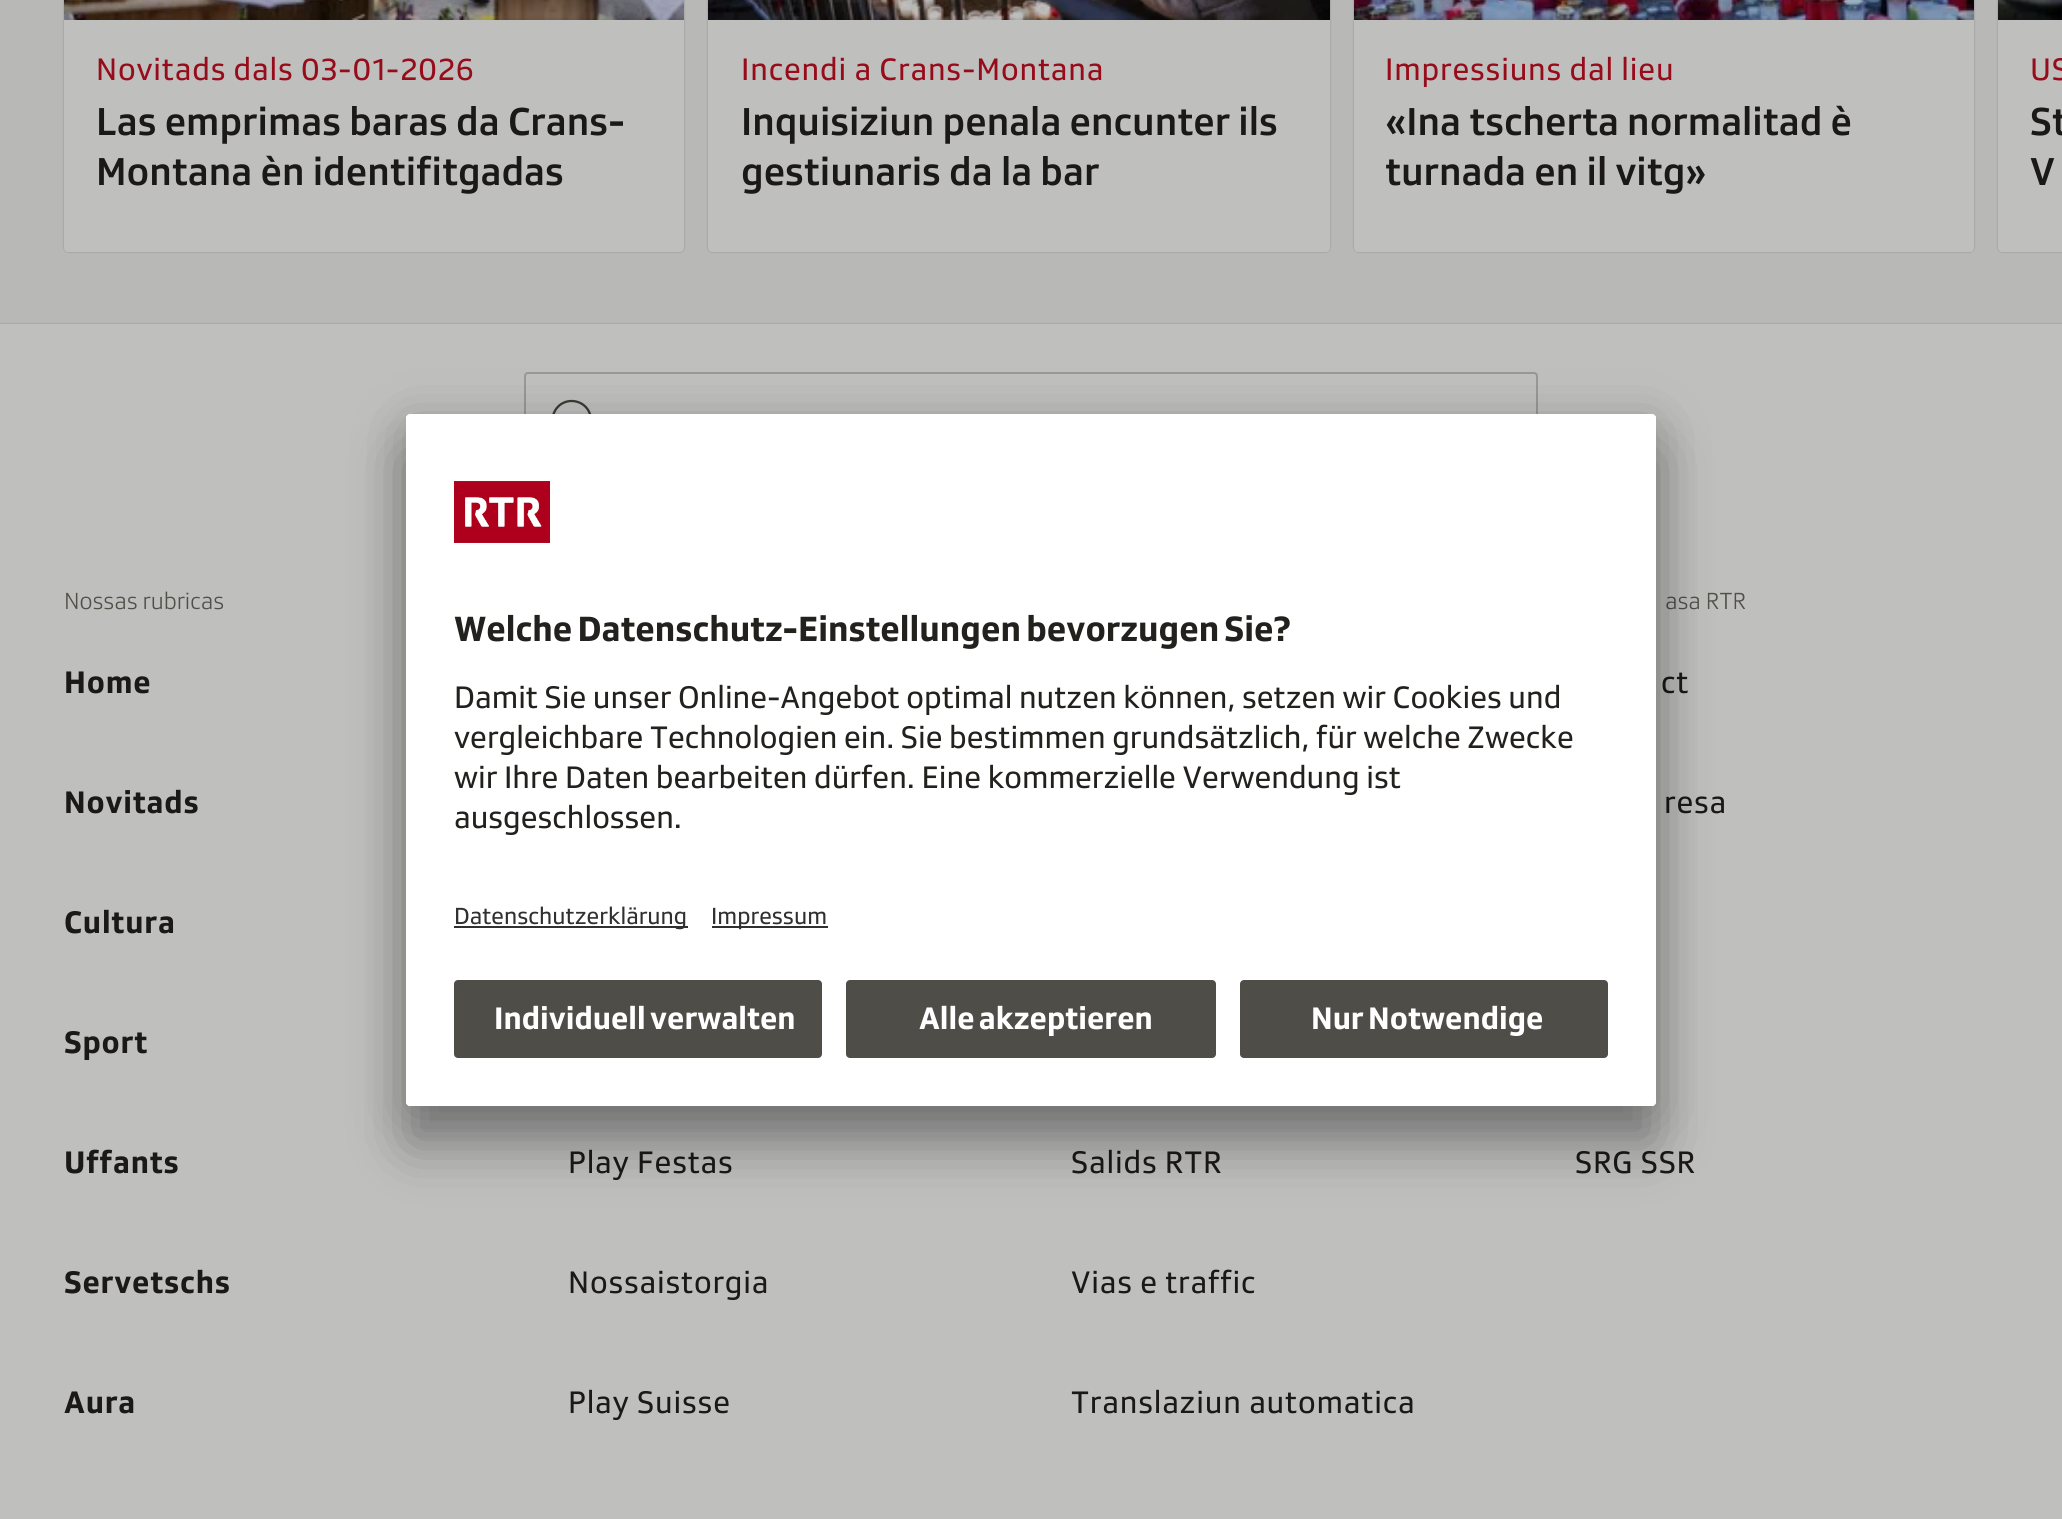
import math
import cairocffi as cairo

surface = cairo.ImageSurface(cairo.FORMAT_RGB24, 2062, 1519)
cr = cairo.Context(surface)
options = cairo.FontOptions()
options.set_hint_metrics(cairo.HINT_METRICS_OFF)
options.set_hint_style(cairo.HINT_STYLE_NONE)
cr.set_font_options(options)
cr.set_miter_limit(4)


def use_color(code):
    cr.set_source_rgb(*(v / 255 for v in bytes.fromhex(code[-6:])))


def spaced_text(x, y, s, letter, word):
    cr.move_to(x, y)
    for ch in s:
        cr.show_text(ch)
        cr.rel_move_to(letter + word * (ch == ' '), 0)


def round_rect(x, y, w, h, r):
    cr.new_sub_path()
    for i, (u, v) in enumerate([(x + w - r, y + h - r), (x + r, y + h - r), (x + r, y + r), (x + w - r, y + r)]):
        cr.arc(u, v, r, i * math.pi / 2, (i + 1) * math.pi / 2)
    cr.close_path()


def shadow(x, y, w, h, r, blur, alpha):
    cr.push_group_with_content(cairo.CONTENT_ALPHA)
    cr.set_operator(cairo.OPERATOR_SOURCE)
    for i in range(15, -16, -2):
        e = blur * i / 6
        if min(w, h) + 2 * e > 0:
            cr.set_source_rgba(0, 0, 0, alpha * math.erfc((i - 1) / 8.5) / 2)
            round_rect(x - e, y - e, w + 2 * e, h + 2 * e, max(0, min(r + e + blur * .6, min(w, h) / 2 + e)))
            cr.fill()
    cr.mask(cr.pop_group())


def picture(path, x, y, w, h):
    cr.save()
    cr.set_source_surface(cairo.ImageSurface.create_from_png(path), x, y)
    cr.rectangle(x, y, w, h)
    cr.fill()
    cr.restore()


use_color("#b8b8b6")
cr.paint()
use_color("#000000")
shadow(64, -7, 620, 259, 4, 1, 0.08)
shadow(64, -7, 620, 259, 4, 1, 0.16)
use_color("#bfbfbe")
round_rect(64, -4, 620, 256, 4)
cr.fill()
picture("img1.png", 64, 0, 620, 20)
cr.set_source_rgba(0, 0, 0, 0.04)
cr.rectangle(64, 18, 620, 2)
cr.fill()
cr.select_font_face("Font")
cr.set_font_size(32)
use_color("#970c1b")
spaced_text(96, 80, "Novitads dals 03-01-2026", 0.8, 0)
cr.select_font_face("Font Medium")
cr.set_font_size(40)
use_color("#1a1916")
cr.move_to(96, 135)
cr.show_text("Las emprimas baras da Crans-")
cr.move_to(96, 185)
cr.show_text("Montana èn identifitgadas")
use_color("#000000")
shadow(708, -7, 622, 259, 4, 1, 0.08)
shadow(708, -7, 622, 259, 4, 1, 0.16)
use_color("#bfbfbe")
round_rect(708, -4, 622, 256, 4)
cr.fill()
picture("img2.png", 708, 0, 622, 20)
cr.set_source_rgba(0, 0, 0, 0.04)
cr.rectangle(763, 18, 466, 2)
cr.fill()
cr.select_font_face("Font")
cr.set_font_size(32)
use_color("#970c1b")
spaced_text(741, 80, "Incendi a Crans-Montana", 0.8, 0)
cr.select_font_face("Font Medium")
cr.set_font_size(40)
use_color("#1a1916")
cr.move_to(741, 135)
cr.show_text("Inquisiziun penala encunter ils")
cr.move_to(741, 185)
cr.show_text("gestiunaris da la bar")
use_color("#000000")
shadow(1354, -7, 620, 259, 4, 1, 0.08)
shadow(1354, -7, 620, 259, 4, 1, 0.16)
use_color("#bfbfbe")
round_rect(1354, -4, 620, 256, 4)
cr.fill()
picture("img3.png", 1354, 0, 620, 20)
cr.set_source_rgba(0, 0, 0, 0.04)
cr.rectangle(1364, 18, 610, 2)
cr.fill()
cr.select_font_face("Font")
cr.set_font_size(32)
use_color("#970c1b")
spaced_text(1385, 80, "Impressiuns dal lieu", 0.8, 0)
cr.select_font_face("Font Medium")
cr.set_font_size(40)
use_color("#1a1916")
cr.move_to(1385, 135)
cr.show_text("«Ina tscherta normalitad è")
cr.move_to(1385, 185)
cr.show_text("turnada en il vitg»")
use_color("#000000")
shadow(1998, -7, 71, 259, 4, 1, 0.08)
shadow(1998, -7, 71, 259, 4, 1, 0.16)
use_color("#bfbfbe")
cr.new_path()
cr.move_to(2002, -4)
cr.line_to(2062, -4)
cr.line_to(2062, 252)
cr.line_to(2002, 252)
cr.curve_to(2000, 252, 1998, 250, 1998, 248)
cr.line_to(1998, 0)
cr.curve_to(1998, -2, 2000, -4, 2002, -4)
cr.close_path()
cr.fill()
picture("img4.png", 1998, 0, 64, 20)
cr.select_font_face("Font")
cr.set_font_size(32)
use_color("#970c1b")
spaced_text(2030, 80, "US", 0.8, 0)
cr.select_font_face("Font Medium")
cr.set_font_size(40)
use_color("#1a1916")
cr.move_to(2030, 135)
cr.show_text("St")
cr.move_to(2030, 185)
cr.show_text("V")
use_color("#000000")
shadow(0, 324, 2062, 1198, 0, 1, 0.08)
shadow(0, 324, 2062, 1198, 0, 1, 0.16)
use_color("#bfbfbe")
cr.rectangle(0, 324, 2062, 1195)
cr.fill()
round_rect(525, 373, 1012, 98, 3)
use_color("#989898")
cr.stroke()
cr.new_path()
cr.move_to(591, 420.5)
cr.curve_to(591, 431, 582.5, 439.5, 571.5, 439.5)
cr.curve_to(561, 439.5, 552.5, 431, 552.5, 420.5)
cr.curve_to(552.5, 409.5, 561, 401, 571.5, 401)
cr.curve_to(582.5, 401, 591, 409.5, 591, 420.5)
cr.close_path()
use_color("#3b3a35")
cr.set_line_width(2.3)
cr.stroke()
cr.select_font_face("Font Light")
cr.set_font_size(24)
use_color("#504f48")
cr.move_to(64, 609)
cr.show_text("Nossas rubricas")
cr.select_font_face("Font", cairo.FONT_SLANT_NORMAL, cairo.FONT_WEIGHT_BOLD)
cr.set_font_size(32)
use_color("#1a1916")
spaced_text(64, 693, "Home", 0.8, 0)
spaced_text(64, 813, "Novitads", 0.8, 0)
spaced_text(64, 933, "Cultura", 0.8, 0)
spaced_text(64, 1053, "Sport", 0.8, 0)
spaced_text(64, 1173, "Uffants", 0.8, 0)
spaced_text(64, 1293, "Servetschs", 0.8, 0)
spaced_text(64, 1413, "Aura", 0.8, 0)
cr.select_font_face("Font Light")
cr.set_font_size(24)
use_color("#504f48")
cr.move_to(1665, 609)
cr.show_text("asa RTR")
cr.select_font_face("Font")
cr.set_font_size(32)
use_color("#1a1916")
spaced_text(1661, 693, "ct", 0.8, 0)
spaced_text(1664, 813, "resa", 0.8, 0)
spaced_text(1575, 1173, "SRG SSR", 0.8, 0)
spaced_text(568, 1173, "Play Festas", 0.8, 0)
spaced_text(568, 1293, "Nossaistorgia", 0.8, 0)
spaced_text(568, 1413, "Play Suisse", 0.8, 0)
spaced_text(1071, 1173, "Salids RTR", 0.8, 0)
spaced_text(1071, 1293, "Vias e traffic", 0.8, 0)
spaced_text(1071, 1413, "Translaziun automatica", 0.8, 0)
use_color("#000000")
shadow(406, 454, 1250, 692, 4, 28, 0.3)
shadow(406, 424, 1250, 692, 4, 26, 0.22)
use_color("#ffffff")
round_rect(406, 414, 1250, 692, 4)
cr.fill()
cr.save()
cr.new_path()
cr.move_to(410, 414)
cr.line_to(1652, 414)
cr.curve_to(1654, 414, 1656, 416, 1656, 418)
cr.line_to(1656, 964)
cr.line_to(406, 964)
cr.line_to(406, 418)
cr.curve_to(406, 416, 408, 414, 410, 414)
cr.close_path()
cr.clip()
cr.rectangle(406, 416, 1250, 548)
cr.fill()
cr.restore()
picture("img5.png", 454, 481, 96, 62)
cr.select_font_face("Font", cairo.FONT_SLANT_NORMAL, cairo.FONT_WEIGHT_BOLD)
cr.set_font_size(36)
use_color("#22211d")
spaced_text(454, 641, "Welche Datenschutz-Einstellungen bevorzugen Sie?", 0, -2)
cr.select_font_face("Font")
cr.set_font_size(32)
cr.move_to(454, 708)
cr.show_text("Damit Sie unser Online-Angebot optimal nutzen können, setzen wir Cookies und")
cr.move_to(454, 748)
cr.show_text("vergleichbare Technologien ein. Sie bestimmen grundsätzlich, für welche Zwecke")
cr.move_to(454, 788)
cr.show_text("wir Ihre Daten bearbeiten dürfen. Eine kommerzielle Verwendung ist")
cr.move_to(454, 828)
cr.show_text("ausgeschlossen.")
use_color("#303030")
cr.rectangle(454, 926, 234, 2)
cr.fill()
cr.set_font_size(24)
cr.move_to(454, 924)
cr.show_text("Datenschutzerklärung")
cr.rectangle(712, 926, 116, 2)
cr.fill()
cr.move_to(711, 924)
cr.show_text("Impressum")
use_color("#ffffff")
cr.new_path()
cr.move_to(406, 964)
cr.line_to(1656, 964)
cr.line_to(1656, 1102)
cr.curve_to(1656, 1104, 1654, 1106, 1652, 1106)
cr.line_to(410, 1106)
cr.curve_to(408, 1106, 406, 1104, 406, 1102)
cr.close_path()
cr.fill()
use_color("#4e4d47")
round_rect(454, 980, 368, 78, 4)
cr.fill()
cr.select_font_face("Font", cairo.FONT_SLANT_NORMAL, cairo.FONT_WEIGHT_BOLD)
cr.set_font_size(32)
use_color("#ffffff")
spaced_text(494, 1029, "Individuell verwalten", 0, -2)
use_color("#4e4d47")
round_rect(846, 980, 370, 78, 4)
cr.fill()
use_color("#ffffff")
spaced_text(919, 1029, "Alle akzeptieren", 0, -2)
use_color("#4e4d47")
round_rect(1240, 980, 368, 78, 4)
cr.fill()
use_color("#ffffff")
spaced_text(1311, 1029, "Nur Notwendige", 0, -2)
surface.write_to_png("result.png")
